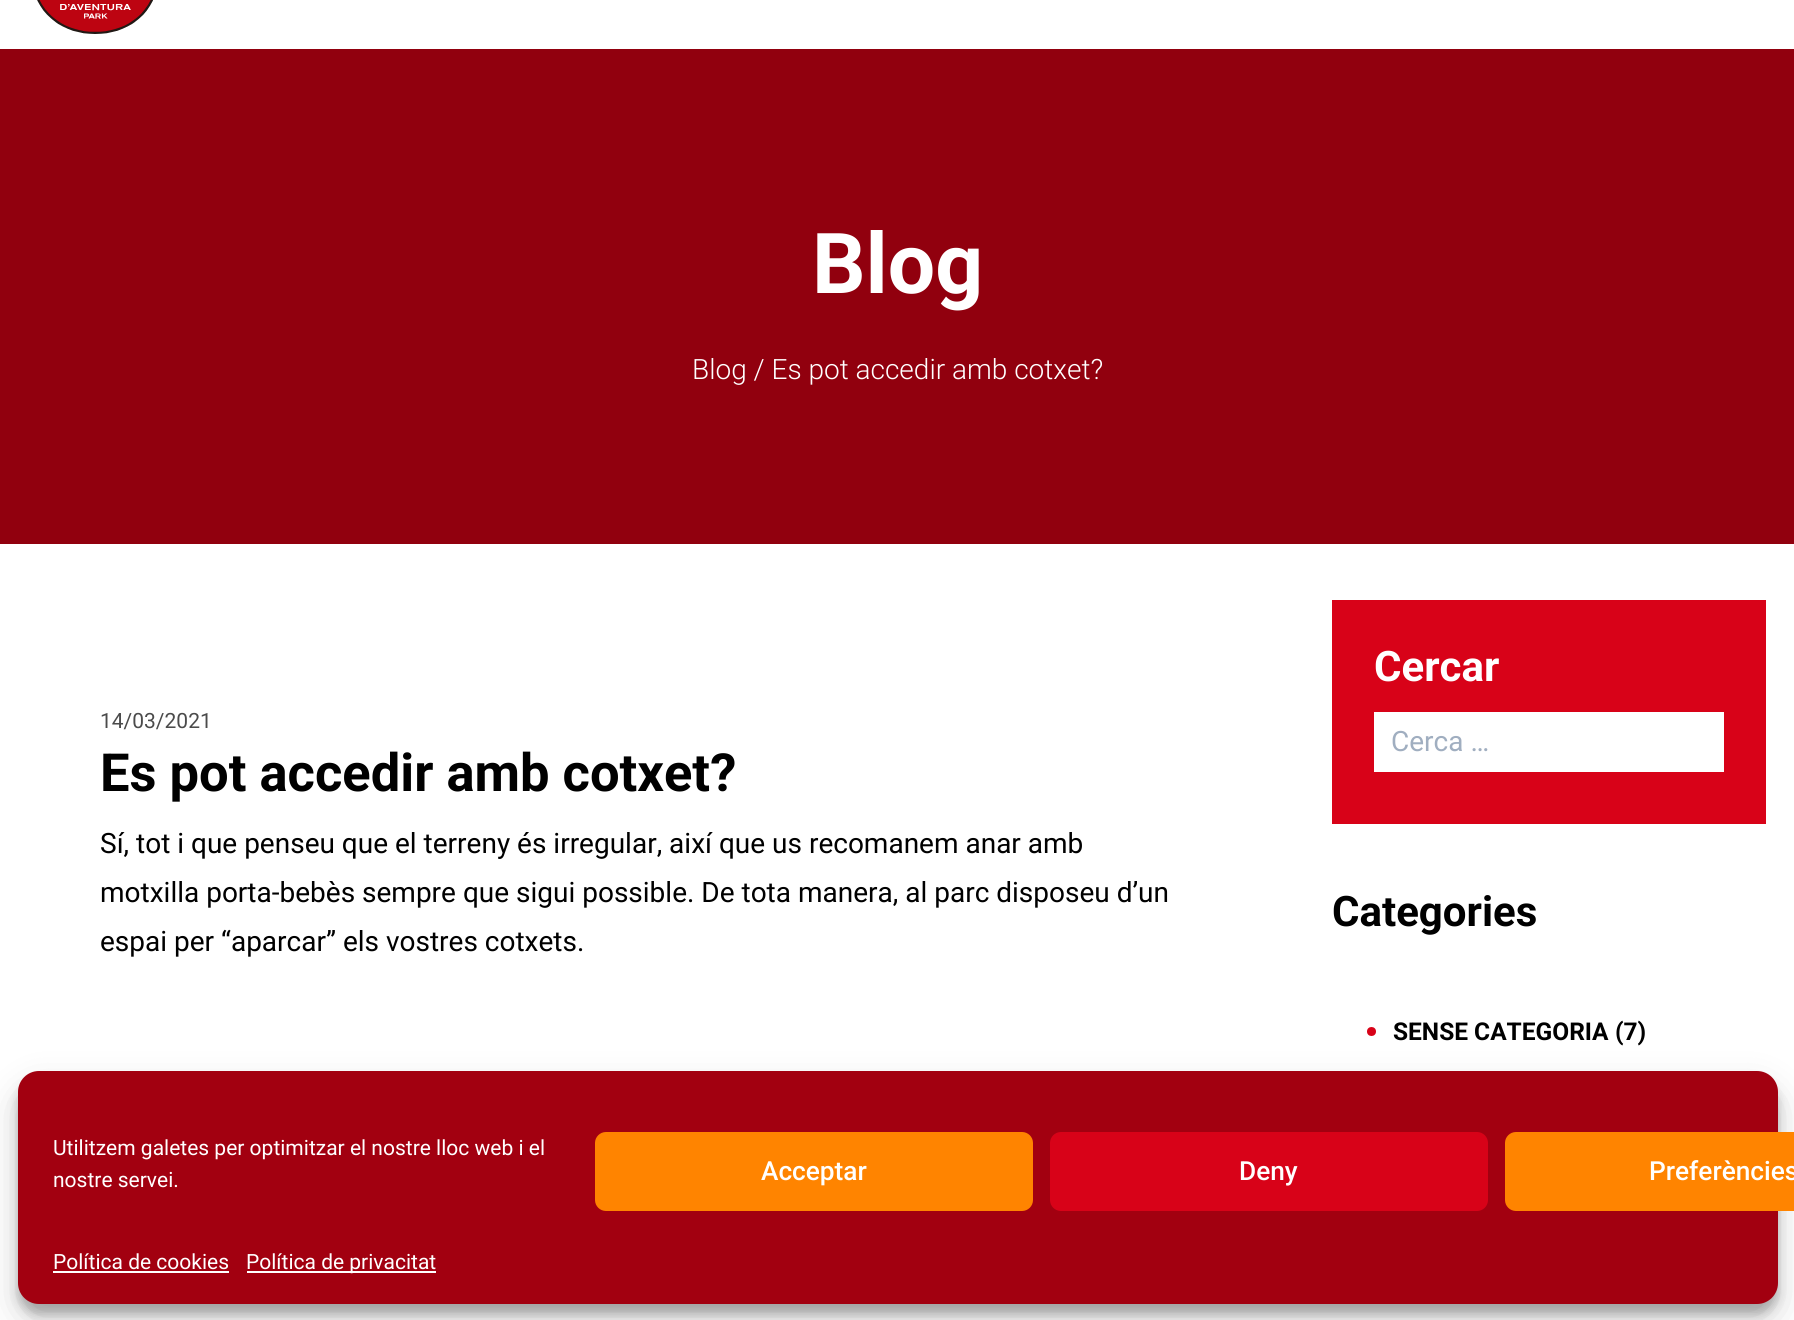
import math
import cairocffi as cairo

surface = cairo.ImageSurface(cairo.FORMAT_RGB24, 1794, 1320)
cr = cairo.Context(surface)
options = cairo.FontOptions()
options.set_hint_metrics(cairo.HINT_METRICS_OFF)
options.set_hint_style(cairo.HINT_STYLE_NONE)
cr.set_font_options(options)
cr.set_miter_limit(4)


def use_color(code):
    cr.set_source_rgb(*(v / 255 for v in bytes.fromhex(code[-6:])))


def round_rect(x, y, w, h, r):
    cr.new_sub_path()
    for i, (u, v) in enumerate([(x + w - r, y + h - r), (x + r, y + h - r), (x + r, y + r), (x + w - r, y + r)]):
        cr.arc(u, v, r, i * math.pi / 2, (i + 1) * math.pi / 2)
    cr.close_path()


def shadow(x, y, w, h, r, blur, alpha):
    cr.push_group_with_content(cairo.CONTENT_ALPHA)
    cr.set_operator(cairo.OPERATOR_SOURCE)
    for i in range(15, -16, -2):
        e = blur * i / 6
        if min(w, h) + 2 * e > 0:
            cr.set_source_rgba(0, 0, 0, alpha * math.erfc((i - 1) / 8.5) / 2)
            round_rect(x - e, y - e, w + 2 * e, h + 2 * e, max(0, min(r + e + blur * .6, min(w, h) / 2 + e)))
            cr.fill()
    cr.mask(cr.pop_group())


def picture(path, x, y, w, h):
    cr.save()
    cr.set_source_surface(cairo.ImageSurface.create_from_png(path), x, y)
    cr.rectangle(x, y, w, h)
    cr.fill()
    cr.restore()


use_color("#ffffff")
cr.paint()
picture("img1.png", 37, 0, 116, 34)
use_color("#91000e")
cr.rectangle(0, 49, 1794, 495)
cr.fill()
cr.select_font_face("Roboto", cairo.FONT_SLANT_NORMAL, cairo.FONT_WEIGHT_BOLD)
cr.set_font_size(84)
use_color("#ffffff")
cr.move_to(812, 293)
cr.show_text("Blog")
cr.select_font_face("Roboto Light")
cr.set_font_size(28)
cr.move_to(692, 379)
cr.show_text("Blog / Es pot accedir amb cotxet?")
cr.select_font_face("Roboto")
cr.set_font_size(21)
use_color("#4b4b4b")
cr.move_to(100, 728)
cr.show_text("14/03/2021")
cr.select_font_face("Roboto", cairo.FONT_SLANT_NORMAL, cairo.FONT_WEIGHT_BOLD)
cr.set_font_size(52.5)
use_color("#000000")
cr.move_to(100, 791)
cr.show_text("Es pot accedir amb cotxet?")
cr.select_font_face("Roboto")
cr.set_font_size(28)
cr.move_to(100, 853)
cr.show_text("Sí, tot i que penseu que el terreny és irregular, així que us recomanem anar amb")
cr.move_to(100, 902)
cr.show_text("motxilla porta-bebès sempre que sigui possible. De tota manera, al parc disposeu d’un")
cr.move_to(100, 951)
cr.show_text("espai per “aparcar” els vostres cotxets.")
use_color("#d80218")
cr.rectangle(1332, 600, 434, 224)
cr.fill()
cr.select_font_face("Roboto", cairo.FONT_SLANT_NORMAL, cairo.FONT_WEIGHT_BOLD)
cr.set_font_size(42)
use_color("#ffffff")
cr.move_to(1374, 681)
cr.show_text("Cercar")
cr.rectangle(1374, 712, 350, 60)
cr.fill()
cr.select_font_face("Roboto")
cr.set_font_size(28)
use_color("#a0aec0")
cr.move_to(1391, 751)
cr.show_text("Cerca …")
cr.select_font_face("Roboto", cairo.FONT_SLANT_NORMAL, cairo.FONT_WEIGHT_BOLD)
cr.set_font_size(42)
use_color("#000000")
cr.move_to(1332, 926)
cr.show_text("Categories")
use_color("#d80218")
cr.new_path()
cr.arc(1371.5, 1031.5, 4.5, 0, 2 * math.pi)
cr.fill()
cr.set_font_size(24.5)
use_color("#000000")
cr.move_to(1393, 1040)
cr.show_text("SENSE CATEGORIA")
cr.move_to(1615, 1040)
cr.show_text("(7)")
use_color("#000000")
shadow(18, 1082, 1760, 232, 21, 5, 0.23)
shadow(18, 1089, 1760, 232, 21, 17.5, 0.19)
use_color("#a20010")
round_rect(18, 1071, 1760, 233, 21)
cr.fill()
cr.select_font_face("Roboto")
cr.set_font_size(21)
use_color("#ffffff")
cr.move_to(53, 1155)
cr.show_text("Utilitzem galetes per optimitzar el nostre lloc web i el")
cr.move_to(53, 1187)
cr.show_text("nostre servei.")
use_color("#ff8400")
round_rect(596, 1133, 436, 77, 10)
cr.fill_preserve()
cr.stroke()
cr.select_font_face("Roboto Medium")
cr.set_font_size(26.25)
use_color("#ffffff")
cr.move_to(761, 1180)
cr.show_text("Acceptar")
use_color("#d80218")
round_rect(1051, 1133, 436, 77, 10)
cr.fill_preserve()
cr.stroke()
use_color("#ffffff")
cr.move_to(1239, 1180)
cr.show_text("Deny")
use_color("#ff8400")
round_rect(1506, 1133, 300, 77, 10)
cr.fill_preserve()
cr.stroke()
use_color("#ffffff")
cr.move_to(1649, 1180)
cr.show_text("Preferències")
cr.select_font_face("Roboto")
cr.set_font_size(21)
cr.move_to(53, 1269)
cr.show_text("Política de cookies")
cr.rectangle(53, 1271, 176, 2)
cr.fill()
cr.rectangle(247, 1271, 189, 2)
cr.fill()
cr.move_to(246, 1269)
cr.show_text("Política de privacitat")
surface.write_to_png("result.png")
